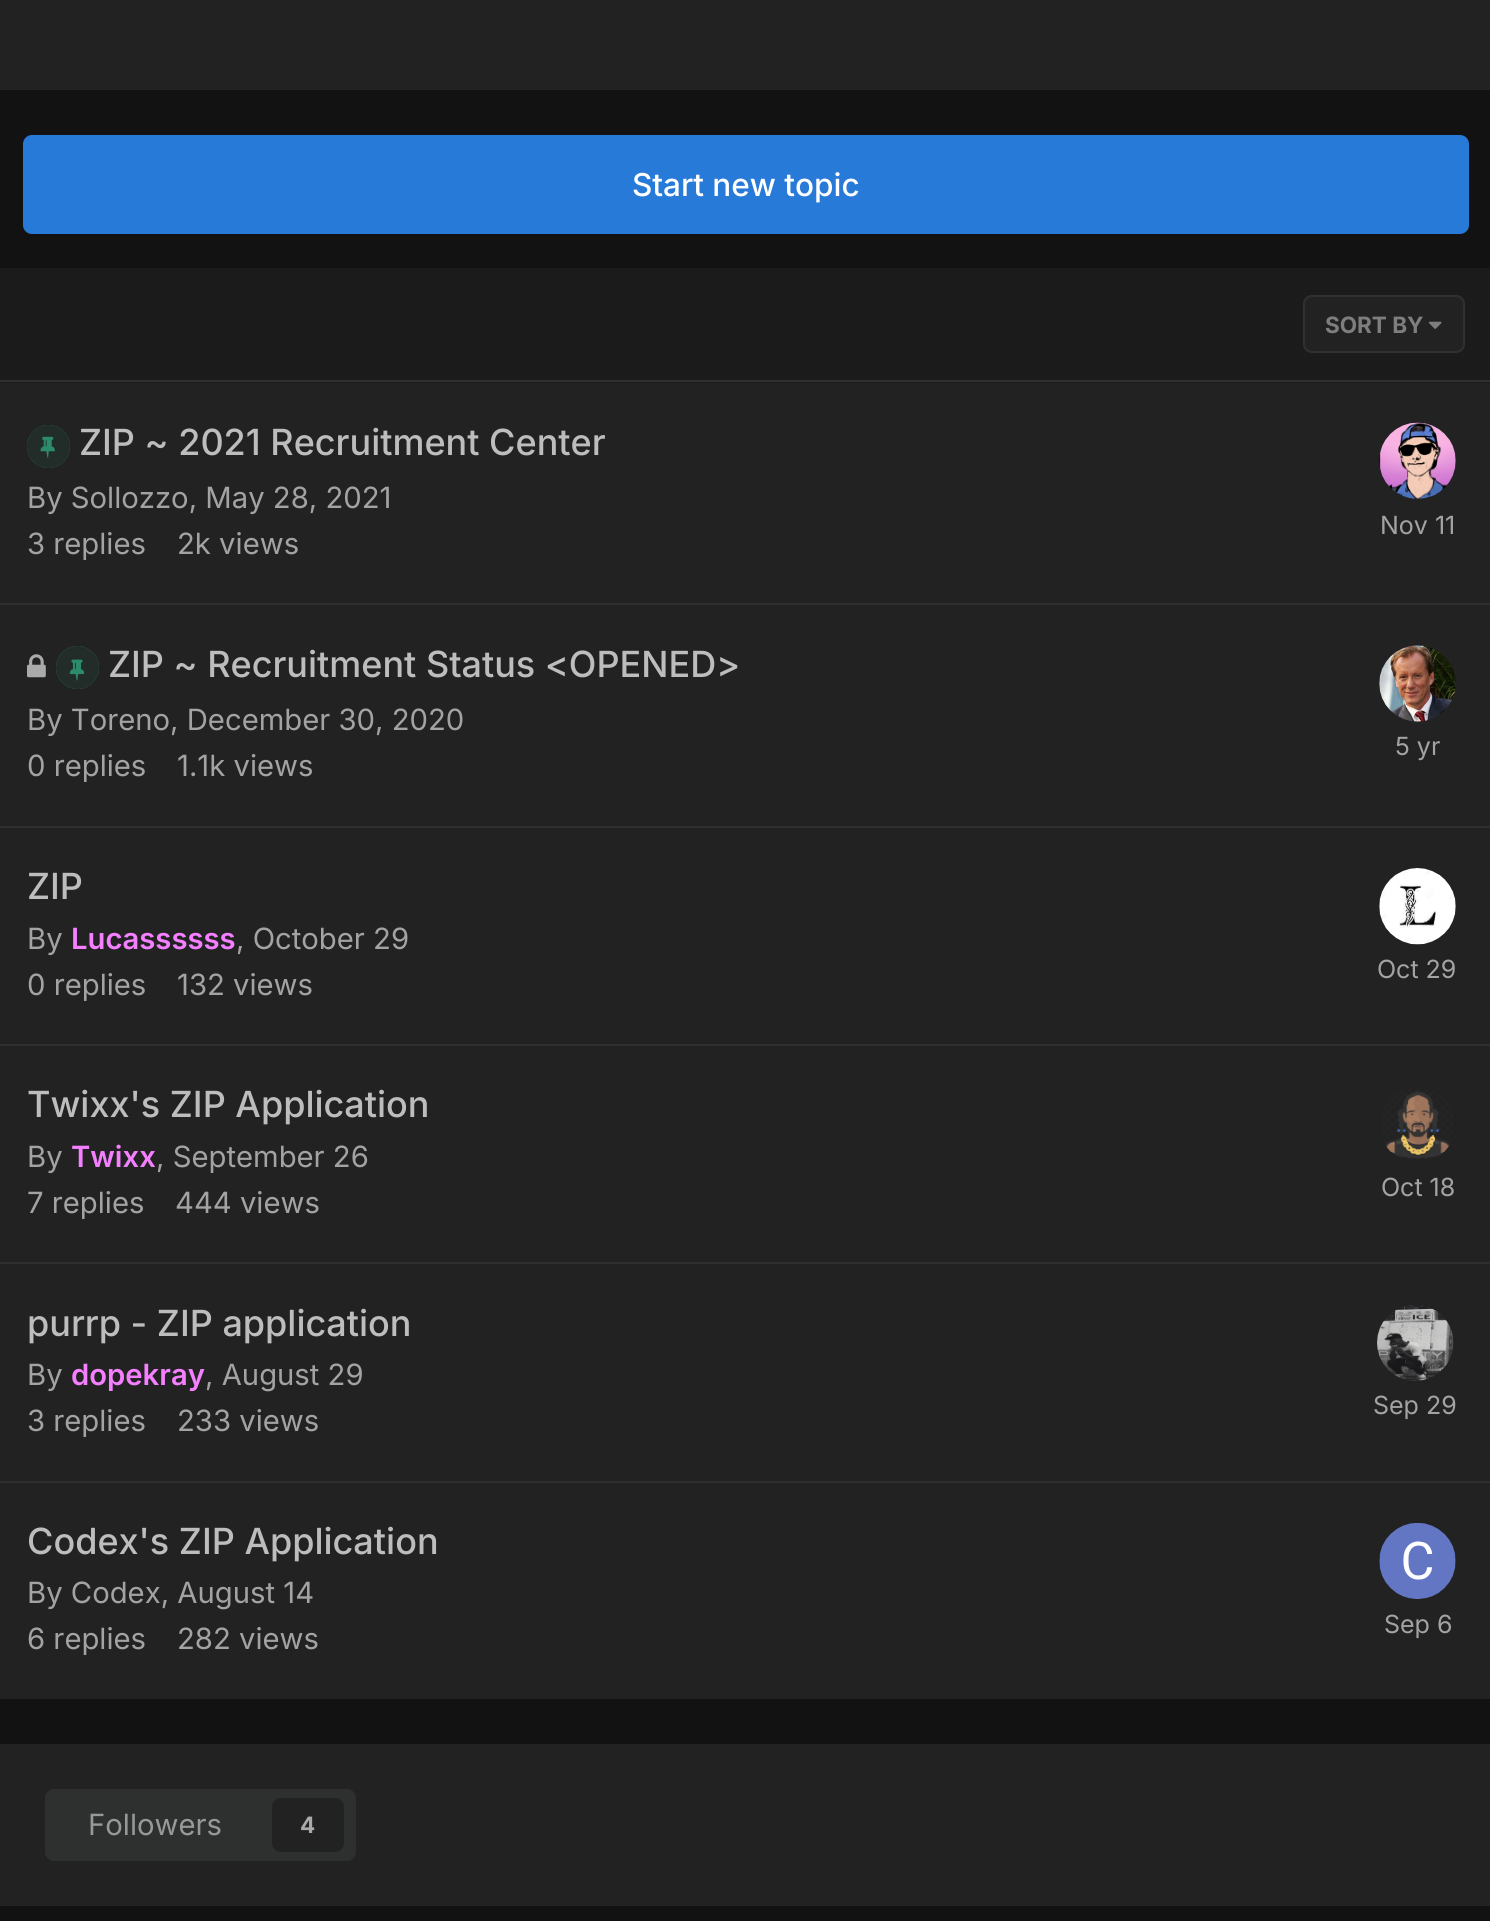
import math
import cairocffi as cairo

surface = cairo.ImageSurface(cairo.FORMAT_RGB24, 1490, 1921)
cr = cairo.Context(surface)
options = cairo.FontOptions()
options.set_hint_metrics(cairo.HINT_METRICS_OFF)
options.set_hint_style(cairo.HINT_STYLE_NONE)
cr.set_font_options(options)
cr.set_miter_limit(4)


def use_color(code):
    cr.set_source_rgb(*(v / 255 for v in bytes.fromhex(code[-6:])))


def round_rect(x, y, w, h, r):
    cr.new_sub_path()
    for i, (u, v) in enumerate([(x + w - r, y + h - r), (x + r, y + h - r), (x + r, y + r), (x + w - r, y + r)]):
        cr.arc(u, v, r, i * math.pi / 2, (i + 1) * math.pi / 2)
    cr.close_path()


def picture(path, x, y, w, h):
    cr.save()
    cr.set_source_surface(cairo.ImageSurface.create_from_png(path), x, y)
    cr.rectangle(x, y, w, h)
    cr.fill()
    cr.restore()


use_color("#121212")
cr.paint()
use_color("#222222")
cr.rectangle(0, 0, 1490, 90)
cr.fill()
use_color("#287ad9")
round_rect(23, 135, 1446, 99, 9)
cr.fill()
cr.select_font_face("Inter Medium")
cr.set_font_size(31.5)
use_color("#ffffff")
cr.move_to(632, 196)
cr.show_text("Start new topic")
use_color("#222222")
cr.rectangle(0, 383, 1490, 1316)
cr.fill()
use_color("#1b1b1b")
cr.rectangle(0, 268, 1490, 115)
cr.fill()
use_color("#303030")
cr.rectangle(0, 380, 1490, 2)
cr.fill()
use_color("#222222")
round_rect(1303, 295, 162, 58, 9)
cr.fill()
picture("img1.png", 1428, 321, 14, 8)
round_rect(1304, 296, 160, 56, 8)
cr.set_source_rgba(0.667, 0.667, 0.667, 0.1)
cr.stroke()
cr.select_font_face("Inter", cairo.FONT_SLANT_NORMAL, cairo.FONT_WEIGHT_BOLD)
cr.set_font_size(22.5)
use_color("#7e7e7e")
cr.move_to(1325, 333)
cr.show_text("SORT BY")
use_color("#2f2f2f")
cr.rectangle(0, 603, 1490, 2)
cr.fill()
use_color("#2c8c69")
cr.arc(48.5, 446.5, 21.5, 0, 2 * math.pi)
cr.fill()
cr.set_source_rgba(0.133, 0.133, 0.133, 0.9)
cr.arc(48.5, 446.5, 21.5, 0, 2 * math.pi)
cr.fill()
picture("img2.png", 40, 436, 15, 22)
cr.select_font_face("Inter Medium")
cr.set_font_size(36)
use_color("#bdbdbd")
cr.move_to(79, 455)
cr.show_text("ZIP ~ 2021 Recruitment Center")
cr.select_font_face("Inter")
cr.set_font_size(29.25)
use_color("#a3a3a3")
cr.move_to(27, 508)
cr.show_text("By Sollozzo, May 28, 2021")
picture("img3.png", 1379, 422, 77, 77)
cr.set_font_size(25)
cr.move_to(1380, 534)
cr.show_text("Nov 11")
cr.set_font_size(29.25)
cr.move_to(27, 554)
cr.show_text("3 replies")
cr.move_to(177, 554)
cr.show_text("2k views")
use_color("#2f2f2f")
cr.rectangle(0, 826, 1490, 2)
cr.fill()
picture("img4.png", 27, 654, 19, 24)
use_color("#2c8c69")
cr.arc(77.5, 667.5, 21.5, 0, 2 * math.pi)
cr.fill()
cr.set_source_rgba(0.133, 0.133, 0.133, 0.9)
cr.arc(77.5, 667.5, 21.5, 0, 2 * math.pi)
cr.fill()
picture("img5.png", 69, 659, 16, 22)
cr.select_font_face("Inter Medium")
cr.set_font_size(36)
use_color("#bdbdbd")
cr.move_to(108, 677)
cr.show_text("ZIP ~ Recruitment Status <OPENED>")
cr.select_font_face("Inter")
cr.set_font_size(29.25)
use_color("#a3a3a3")
cr.move_to(27, 730)
cr.show_text("By Toreno, December 30, 2020")
picture("img6.png", 1379, 645, 77, 77)
cr.set_font_size(25)
cr.move_to(1395, 755)
cr.show_text("5 yr")
cr.set_font_size(29.25)
cr.move_to(27, 776)
cr.show_text("0 replies")
cr.move_to(177, 776)
cr.show_text("1.1k views")
use_color("#2f2f2f")
cr.rectangle(0, 1044, 1490, 2)
cr.fill()
cr.select_font_face("Inter Medium")
cr.set_font_size(36)
use_color("#bdbdbd")
cr.move_to(27, 899)
cr.show_text("ZIP")
cr.select_font_face("Inter")
cr.set_font_size(29.25)
use_color("#a3a3a3")
cr.move_to(27, 949)
cr.show_text("By")
cr.select_font_face("Inter SemiBold")
use_color("#f47fff")
cr.move_to(71, 949)
cr.show_text("Lucassssss")
cr.select_font_face("Inter")
use_color("#a3a3a3")
cr.move_to(236, 949)
cr.show_text(", October 29")
picture("img7.png", 1379, 868, 77, 77)
cr.set_font_size(25)
cr.move_to(1377, 978)
cr.show_text("Oct 29")
cr.set_font_size(29.25)
cr.move_to(27, 995)
cr.show_text("0 replies")
cr.move_to(177, 995)
cr.show_text("132 views")
use_color("#2f2f2f")
cr.rectangle(0, 1262, 1490, 2)
cr.fill()
cr.select_font_face("Inter Medium")
cr.set_font_size(36)
use_color("#bdbdbd")
cr.move_to(27, 1117)
cr.show_text("Twixx's ZIP Application")
cr.select_font_face("Inter")
cr.set_font_size(29.25)
use_color("#a3a3a3")
cr.move_to(27, 1167)
cr.show_text("By")
cr.select_font_face("Inter SemiBold")
use_color("#f47fff")
cr.move_to(71, 1167)
cr.show_text("Twixx")
cr.select_font_face("Inter")
use_color("#a3a3a3")
cr.move_to(156, 1167)
cr.show_text(", September 26")
picture("img8.png", 1382, 1089, 71, 72)
cr.set_font_size(25)
cr.move_to(1381, 1196)
cr.show_text("Oct 18")
cr.set_font_size(29.25)
cr.move_to(27, 1213)
cr.show_text("7 replies")
cr.move_to(175, 1213)
cr.show_text("444 views")
use_color("#2f2f2f")
cr.rectangle(0, 1481, 1490, 2)
cr.fill()
cr.select_font_face("Inter Medium")
cr.set_font_size(36)
use_color("#bdbdbd")
cr.move_to(27, 1336)
cr.show_text("purrp - ZIP application")
cr.select_font_face("Inter")
cr.set_font_size(29.25)
use_color("#a3a3a3")
cr.move_to(27, 1385)
cr.show_text("By")
cr.select_font_face("Inter SemiBold")
use_color("#f47fff")
cr.move_to(71, 1385)
cr.show_text("dopekray")
cr.select_font_face("Inter")
use_color("#a3a3a3")
cr.move_to(205, 1385)
cr.show_text(", August 29")
cr.move_to(27, 1431)
cr.show_text("3 replies")
cr.move_to(177, 1431)
cr.show_text("233 views")
picture("img9.png", 1377, 1305, 77, 76)
cr.set_font_size(25)
cr.move_to(1373, 1414)
cr.show_text("Sep 29")
cr.select_font_face("Inter Medium")
cr.set_font_size(36)
use_color("#bdbdbd")
cr.move_to(27, 1554)
cr.show_text("Codex's ZIP Application")
cr.select_font_face("Inter")
cr.set_font_size(29.25)
use_color("#a3a3a3")
cr.move_to(27, 1603)
cr.show_text("By Codex, August 14")
cr.move_to(27, 1649)
cr.show_text("6 replies")
cr.move_to(177, 1649)
cr.show_text("282 views")
picture("img10.png", 1379, 1523, 77, 76)
cr.set_font_size(25)
cr.move_to(1384, 1633)
cr.show_text("Sep 6")
use_color("#222222")
cr.rectangle(0, 1744, 1490, 162)
cr.fill()
use_color("#2e2f2f")
round_rect(45, 1789, 311, 72, 9)
cr.fill()
cr.set_font_size(29.25)
use_color("#989898")
cr.move_to(88, 1835)
cr.show_text("Followers")
use_color("#222222")
round_rect(272, 1798, 72, 54, 9)
cr.fill()
cr.select_font_face("Inter", cairo.FONT_SLANT_NORMAL, cairo.FONT_WEIGHT_BOLD)
cr.set_font_size(22.5)
use_color("#aaaaaa")
cr.move_to(300, 1833)
cr.show_text("4")
surface.write_to_png("result.png")
